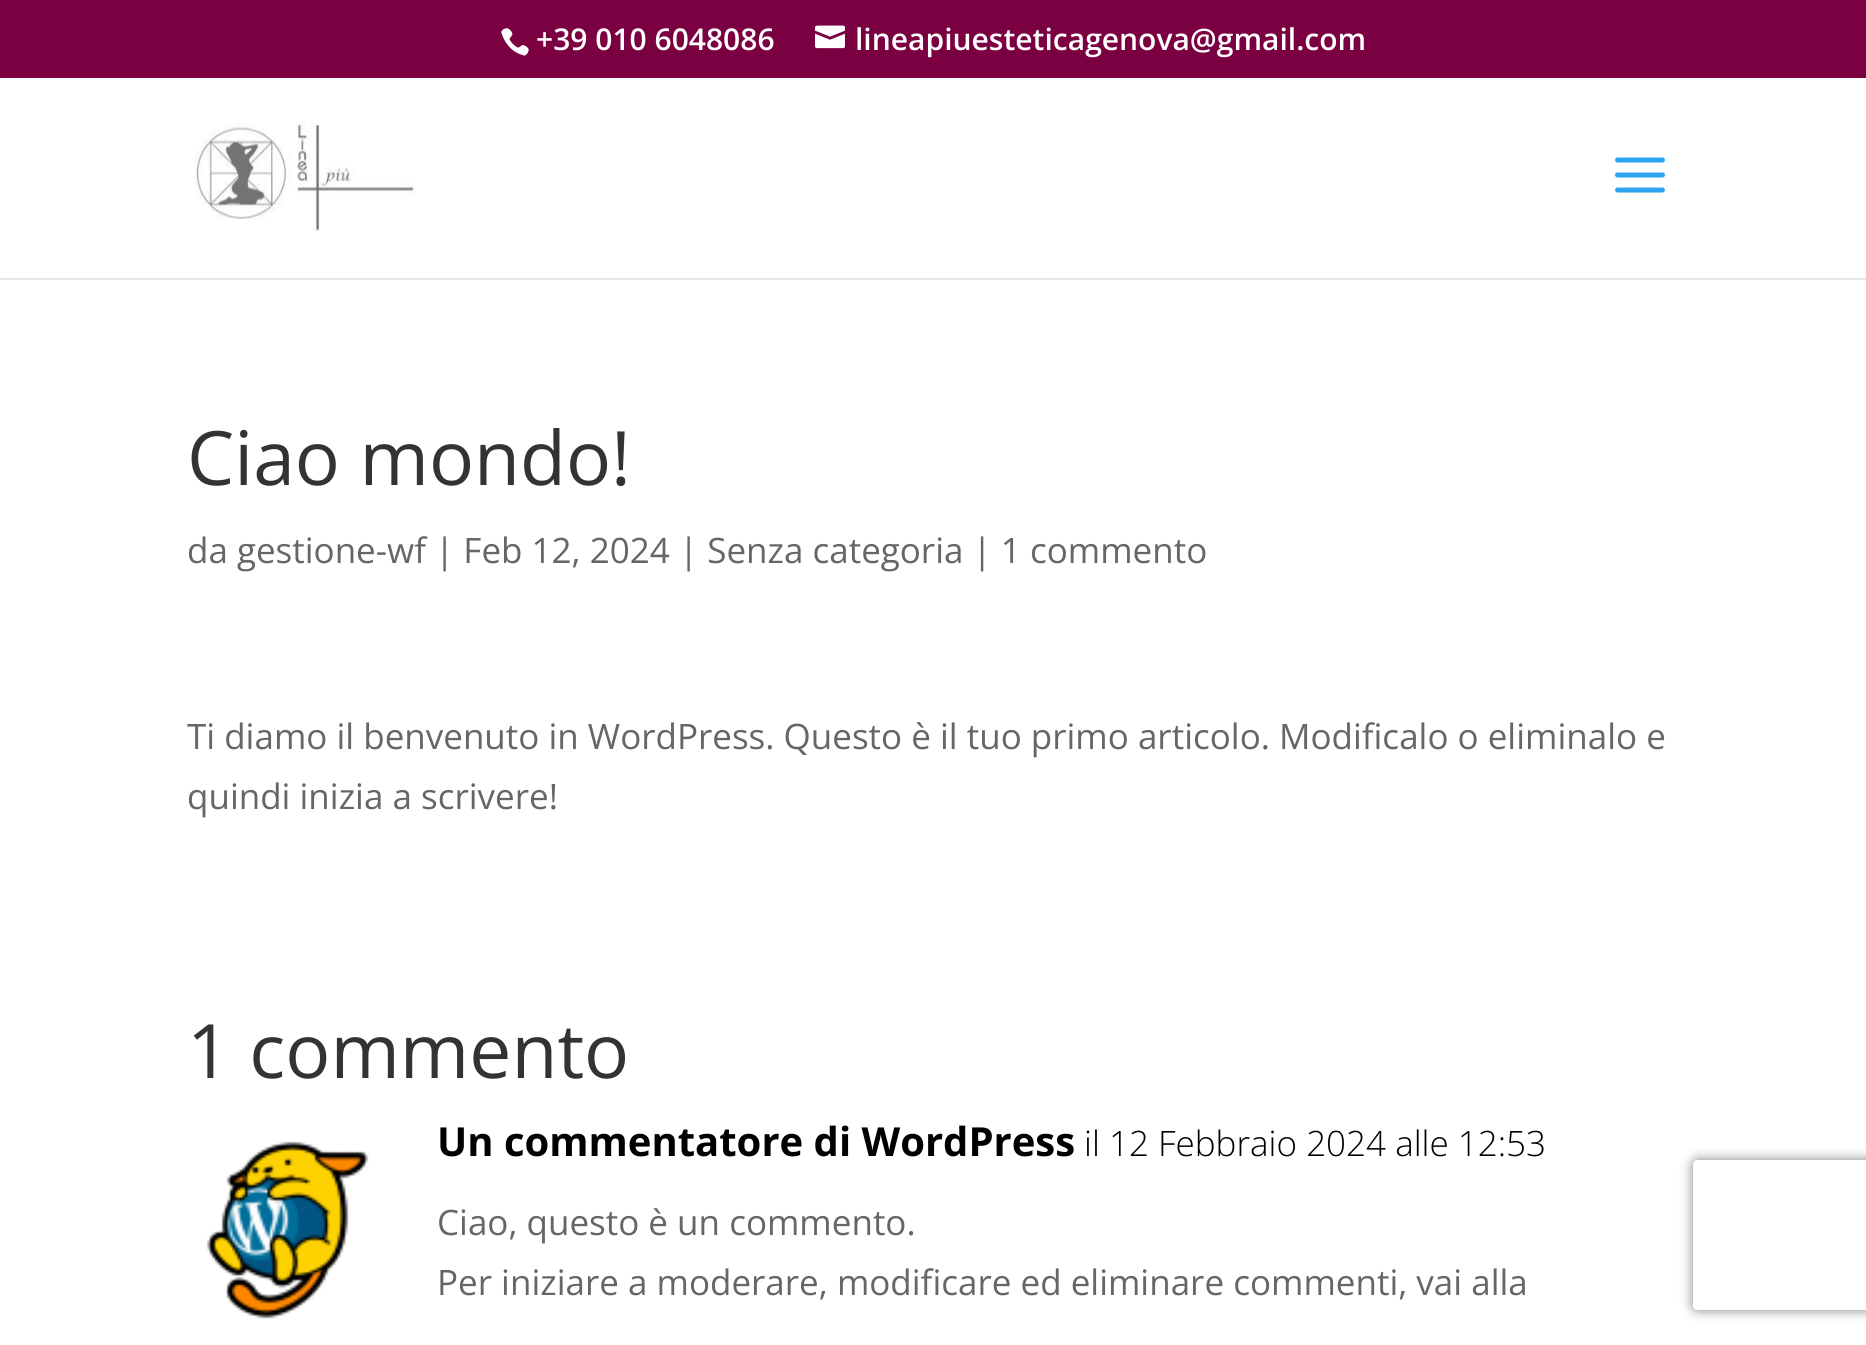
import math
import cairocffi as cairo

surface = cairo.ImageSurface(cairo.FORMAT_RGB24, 1866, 1345)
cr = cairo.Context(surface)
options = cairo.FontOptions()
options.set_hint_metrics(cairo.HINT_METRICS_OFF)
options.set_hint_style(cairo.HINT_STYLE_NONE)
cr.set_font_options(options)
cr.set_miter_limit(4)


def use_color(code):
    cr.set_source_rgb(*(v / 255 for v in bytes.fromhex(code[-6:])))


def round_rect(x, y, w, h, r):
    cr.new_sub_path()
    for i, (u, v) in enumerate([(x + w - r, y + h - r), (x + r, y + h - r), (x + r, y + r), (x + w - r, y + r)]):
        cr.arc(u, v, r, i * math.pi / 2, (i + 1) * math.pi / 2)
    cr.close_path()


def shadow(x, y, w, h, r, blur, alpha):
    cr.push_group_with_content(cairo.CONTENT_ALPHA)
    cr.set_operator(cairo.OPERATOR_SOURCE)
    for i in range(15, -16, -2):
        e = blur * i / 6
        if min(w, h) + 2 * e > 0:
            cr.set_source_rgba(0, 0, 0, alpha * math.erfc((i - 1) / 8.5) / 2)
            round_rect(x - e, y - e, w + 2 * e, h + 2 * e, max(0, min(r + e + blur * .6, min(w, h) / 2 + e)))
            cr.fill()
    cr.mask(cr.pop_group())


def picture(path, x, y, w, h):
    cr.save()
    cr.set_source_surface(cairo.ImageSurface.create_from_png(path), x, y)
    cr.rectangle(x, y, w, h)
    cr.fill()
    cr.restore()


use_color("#ffffff")
cr.paint()
use_color("#7a0041")
cr.rectangle(0, 0, 1866, 78)
cr.fill()
picture("img1.png", 501, 28, 28, 28)
cr.select_font_face("Open Sans SemiBold")
cr.set_font_size(30)
use_color("#ffffff")
cr.move_to(536, 50)
cr.show_text("+39 010 6048086")
picture("img2.png", 815, 25, 30, 24)
cr.move_to(855, 50)
cr.show_text("lineapiuesteticagenova@gmail.com")
use_color("#e6e6e6")
cr.new_path()
cr.move_to(0, 278)
cr.line_to(0, 280)
cr.line_to(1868, 280)
cr.line_to(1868, 80)
cr.line_to(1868, 278)
cr.close_path()
cr.fill()
picture("img3.png", 195, 122, 220, 110)
picture("img4.png", 1615, 157, 50, 36)
cr.select_font_face("Open Sans")
cr.set_font_size(75)
use_color("#333333")
cr.move_to(187, 485)
cr.show_text("Ciao mondo!")
cr.set_font_size(35)
use_color("#666666")
cr.move_to(187, 563)
cr.show_text("da gestione-wf | Feb 12, 2024 | Senza categoria | 1 commento")
cr.move_to(187, 749)
cr.show_text("Ti diamo il benvenuto in WordPress. Questo è il tuo primo articolo. Modificalo o eliminalo e")
cr.move_to(187, 809)
cr.show_text("quindi inizia a scrivere!")
cr.set_font_size(75)
use_color("#333333")
cr.move_to(187, 1078)
cr.show_text("1 commento")
picture("img5.png", 206, 1141, 163, 178)
cr.select_font_face("Open Sans", cairo.FONT_SLANT_NORMAL, cairo.FONT_WEIGHT_BOLD)
cr.set_font_size(40)
use_color("#000000")
cr.move_to(437, 1156)
cr.show_text("Un commentatore di WordPress")
cr.select_font_face("Open Sans Light")
cr.set_font_size(35)
cr.move_to(1084, 1156)
cr.show_text("il 12 Febbraio 2024 alle 12:53")
cr.select_font_face("Open Sans")
use_color("#666666")
cr.move_to(437, 1235)
cr.show_text("Ciao, questo è un commento.")
cr.move_to(437, 1295)
cr.show_text("Per iniziare a moderare, modificare ed eliminare commenti, vai alla")
cr.save()
cr.set_fill_rule(cairo.FILL_RULE_EVEN_ODD)
cr.new_path()
cr.move_to(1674, 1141)
cr.line_to(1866, 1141)
cr.line_to(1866, 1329)
cr.line_to(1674, 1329)
cr.close_path()
cr.move_to(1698, 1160)
cr.line_to(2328, 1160)
cr.curve_to(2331, 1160, 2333, 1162, 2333, 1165)
cr.line_to(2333, 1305)
cr.curve_to(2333, 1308, 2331, 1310, 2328, 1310)
cr.line_to(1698, 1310)
cr.curve_to(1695, 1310, 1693, 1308, 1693, 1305)
cr.line_to(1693, 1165)
cr.curve_to(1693, 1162, 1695, 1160, 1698, 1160)
cr.close_path()
cr.clip()
use_color("#808080")
shadow(1693, 1160, 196, 150, 5, 6, 1)
cr.restore()
surface.write_to_png("result.png")
